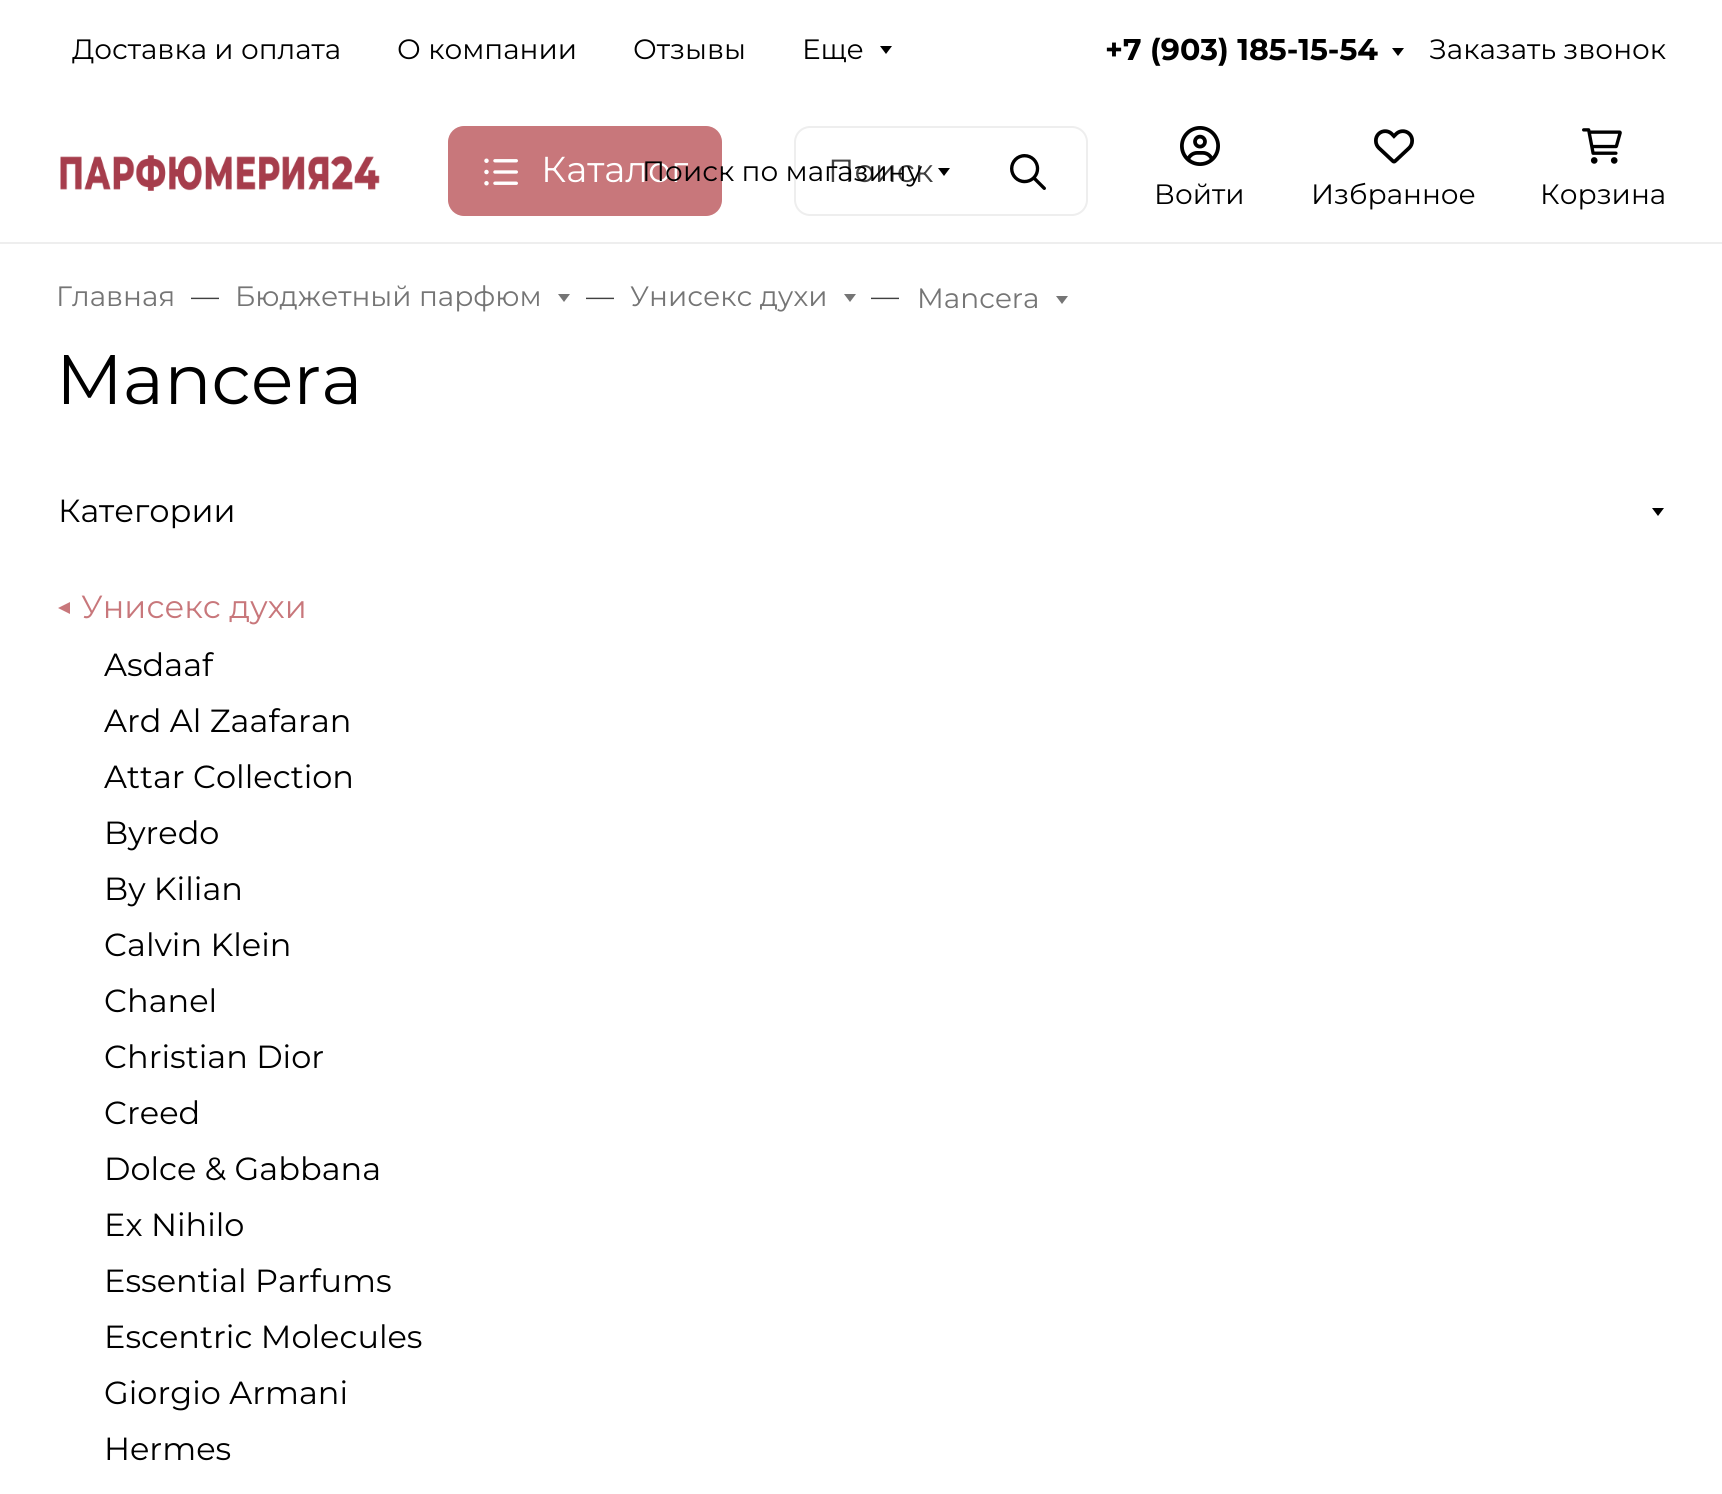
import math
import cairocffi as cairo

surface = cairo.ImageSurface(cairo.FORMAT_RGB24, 1722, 1494)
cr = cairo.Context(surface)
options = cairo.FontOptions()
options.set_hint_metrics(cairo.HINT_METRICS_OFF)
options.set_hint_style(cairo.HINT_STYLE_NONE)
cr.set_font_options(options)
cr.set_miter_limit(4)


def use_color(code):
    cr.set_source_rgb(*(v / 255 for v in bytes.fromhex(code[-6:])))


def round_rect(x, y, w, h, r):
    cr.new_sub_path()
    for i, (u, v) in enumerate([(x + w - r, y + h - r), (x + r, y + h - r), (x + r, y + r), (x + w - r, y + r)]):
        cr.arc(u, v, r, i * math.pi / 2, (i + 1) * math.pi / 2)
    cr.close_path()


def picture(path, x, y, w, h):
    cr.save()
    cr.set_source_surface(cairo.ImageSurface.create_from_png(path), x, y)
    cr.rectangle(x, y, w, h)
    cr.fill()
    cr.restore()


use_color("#ffffff")
cr.paint()
use_color("#eeeeee")
cr.rectangle(0, 242, 1722, 2)
cr.fill()
cr.select_font_face("Montserrat Thin")
cr.set_font_size(28)
use_color("#000000")
cr.move_to(72, 59)
cr.show_text("Доставка и оплата")
cr.move_to(397, 59)
cr.show_text("О компании")
cr.move_to(633, 59)
cr.show_text("Отзывы")
cr.move_to(802, 59)
cr.show_text("Еще")
cr.new_path()
cr.move_to(880, 46)
cr.line_to(892, 46)
cr.line_to(886, 54)
cr.close_path()
cr.fill()
cr.select_font_face("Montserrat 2 Thin")
cr.set_font_size(30)
cr.move_to(1105, 60)
cr.show_text("+7 (903) 185-15-54")
cr.new_path()
cr.move_to(1392, 48)
cr.line_to(1404, 48)
cr.line_to(1398, 56)
cr.close_path()
cr.fill()
cr.select_font_face("Montserrat Thin")
cr.set_font_size(28)
cr.move_to(1429, 59)
cr.show_text("Заказать звонок")
picture("img1.png", 60, 155, 320, 36)
use_color("#c8777b")
round_rect(449, 127, 272, 88, 15)
cr.fill_preserve()
cr.stroke()
picture("img2.png", 484, 158, 34, 28)
cr.set_font_size(36)
use_color("#ffffff")
cr.move_to(541, 182)
cr.show_text("Каталог")
round_rect(795, 127, 292, 88, 15)
use_color("#eeeeee")
cr.stroke()
cr.set_font_size(32)
use_color("#404040")
cr.move_to(828, 182)
cr.show_text("Поиск")
cr.set_font_size(28)
use_color("#000000")
cr.move_to(642, 181)
cr.show_text("Поиск по магазину")
cr.new_path()
cr.move_to(938, 168)
cr.line_to(950, 168)
cr.line_to(944, 176)
cr.close_path()
cr.fill()
picture("img3.png", 1010, 154, 36, 36)
picture("img4.png", 1180, 126, 40, 40)
cr.move_to(1154, 204)
cr.show_text("Войти")
picture("img5.png", 1374, 129, 40, 35)
cr.move_to(1311, 204)
cr.show_text("Избранное")
picture("img6.png", 1582, 128, 40, 36)
cr.move_to(1540, 204)
cr.show_text("Корзина")
use_color("#757575")
cr.move_to(56, 306)
cr.show_text("Главная")
use_color("#404040")
cr.move_to(191, 306)
cr.show_text("—")
use_color("#757575")
cr.move_to(235, 306)
cr.show_text("Бюджетный парфюм")
cr.new_path()
cr.move_to(558, 294)
cr.line_to(570, 294)
cr.line_to(564, 302)
cr.close_path()
cr.fill()
use_color("#404040")
cr.move_to(586, 306)
cr.show_text("—")
use_color("#757575")
cr.move_to(630, 306)
cr.show_text("Унисекс духи")
cr.new_path()
cr.move_to(844, 294)
cr.line_to(856, 294)
cr.line_to(850, 302)
cr.close_path()
cr.fill()
use_color("#404040")
cr.move_to(871, 306)
cr.show_text("—")
use_color("#757575")
cr.move_to(917, 308)
cr.show_text("Mancera")
cr.new_path()
cr.move_to(1056, 296)
cr.line_to(1068, 296)
cr.line_to(1062, 304)
cr.close_path()
cr.fill()
cr.set_font_size(70)
use_color("#000000")
cr.move_to(56, 404)
cr.show_text("Mancera")
cr.set_font_size(32)
cr.move_to(58, 522)
cr.show_text("Категории")
cr.new_path()
cr.move_to(1652, 508)
cr.line_to(1664, 508)
cr.line_to(1658, 516)
cr.close_path()
cr.fill()
use_color("#c8777b")
cr.new_path()
cr.move_to(70, 602)
cr.line_to(70, 614)
cr.line_to(58, 608)
cr.close_path()
cr.fill()
cr.move_to(81, 618)
cr.show_text("Унисекс духи")
use_color("#000000")
cr.move_to(104, 676)
cr.show_text("Asdaaf")
cr.move_to(104, 732)
cr.show_text("Ard Al Zaafaran")
cr.move_to(104, 788)
cr.show_text("Attar Collection")
cr.move_to(104, 844)
cr.show_text("Byredo")
cr.move_to(104, 900)
cr.show_text("By Kilian")
cr.move_to(104, 956)
cr.show_text("Calvin Klein")
cr.move_to(104, 1012)
cr.show_text("Chanel")
cr.move_to(104, 1068)
cr.show_text("Christian Dior")
cr.move_to(104, 1124)
cr.show_text("Creed")
cr.move_to(104, 1180)
cr.show_text("Dolce & Gabbana")
cr.move_to(104, 1236)
cr.show_text("Ex Nihilo")
cr.move_to(104, 1292)
cr.show_text("Essential Parfums")
cr.move_to(104, 1348)
cr.show_text("Escentric Molecules")
cr.move_to(104, 1404)
cr.show_text("Giorgio Armani")
cr.move_to(104, 1460)
cr.show_text("Hermes")
surface.write_to_png("result.png")
